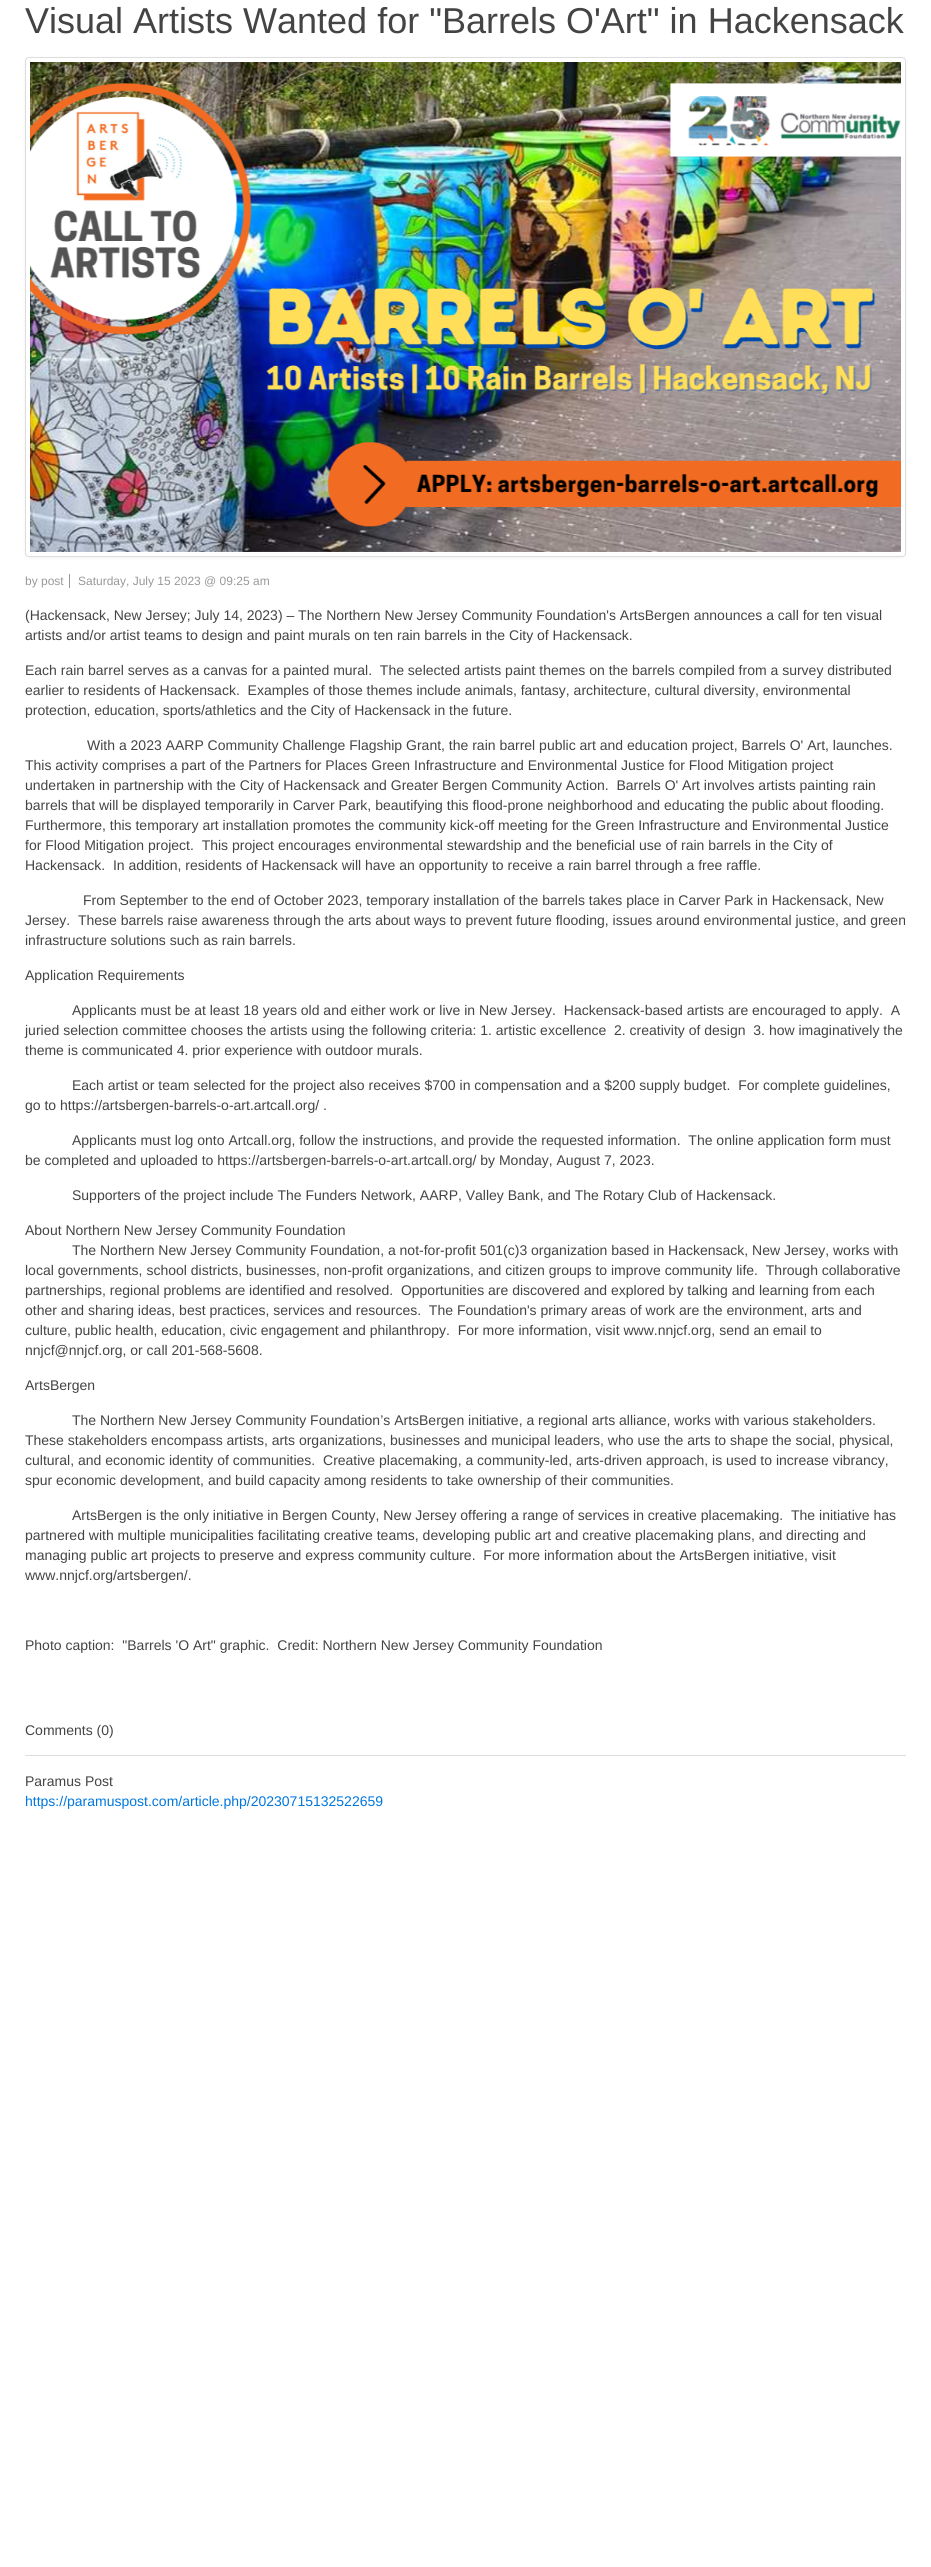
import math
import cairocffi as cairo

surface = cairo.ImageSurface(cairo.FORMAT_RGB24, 931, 2567)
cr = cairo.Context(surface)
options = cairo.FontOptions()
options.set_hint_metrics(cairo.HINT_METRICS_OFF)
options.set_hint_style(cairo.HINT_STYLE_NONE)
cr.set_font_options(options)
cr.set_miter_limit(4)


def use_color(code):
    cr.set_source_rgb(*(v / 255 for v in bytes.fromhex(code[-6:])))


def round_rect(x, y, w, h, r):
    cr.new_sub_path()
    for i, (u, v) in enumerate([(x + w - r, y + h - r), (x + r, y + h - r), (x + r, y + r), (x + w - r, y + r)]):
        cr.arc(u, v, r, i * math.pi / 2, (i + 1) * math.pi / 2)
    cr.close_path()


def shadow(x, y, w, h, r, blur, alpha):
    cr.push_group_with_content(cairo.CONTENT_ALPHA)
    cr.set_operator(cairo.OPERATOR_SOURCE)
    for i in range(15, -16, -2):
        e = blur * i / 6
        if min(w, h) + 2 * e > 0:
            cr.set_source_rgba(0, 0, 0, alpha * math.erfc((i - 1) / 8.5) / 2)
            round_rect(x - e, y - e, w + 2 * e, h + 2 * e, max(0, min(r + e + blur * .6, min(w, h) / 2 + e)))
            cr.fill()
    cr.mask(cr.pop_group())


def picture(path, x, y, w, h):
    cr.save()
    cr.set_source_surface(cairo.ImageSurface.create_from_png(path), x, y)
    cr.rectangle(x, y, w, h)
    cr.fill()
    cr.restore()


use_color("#ffffff")
cr.paint()
cr.select_font_face("Liberation Sans")
cr.set_font_size(36)
use_color("#444444")
cr.move_to(25, 33)
cr.show_text("Visual Artists Wanted for \"Barrels O'Art\" in Hackensack")
use_color("#000000")
shadow(25, 58, 881, 500, 4, 1.5, 0.05)
use_color("#ffffff")
round_rect(25.5, 57.5, 880, 499, 3.5)
cr.fill_preserve()
use_color("#dddddd")
cr.set_line_width(1)
cr.stroke()
picture("img1.png", 30, 62, 871, 490)
cr.set_font_size(12)
use_color("#999999")
cr.move_to(25, 585)
cr.show_text("by post")
cr.rectangle(69, 574, 1, 14)
cr.fill()
cr.move_to(78, 585)
cr.show_text("Saturday, July 15 2023 @ 09:25 am")
cr.set_font_size(14)
use_color("#444444")
cr.move_to(25, 620)
cr.show_text("(Hackensack, New Jersey; July 14, 2023) – The Northern New Jersey Community Foundation's ArtsBergen announces a call for ten visual")
cr.move_to(25, 640)
cr.show_text("artists and/or artist teams to design and paint murals on ten rain barrels in the City of Hackensack.")
cr.move_to(25, 675)
cr.show_text("Each rain barrel serves as a canvas for a painted mural.  The selected artists paint themes on the barrels compiled from a survey distributed")
cr.move_to(25, 695)
cr.show_text("earlier to residents of Hackensack.  Examples of those themes include animals, fantasy, architecture, cultural diversity, environmental")
cr.move_to(25, 715)
cr.show_text("protection, education, sports/athletics and the City of Hackensack in the future.")
cr.move_to(87, 750)
cr.show_text("With a 2023 AARP Community Challenge Flagship Grant, the rain barrel public art and education project, Barrels O' Art, launches.")
cr.move_to(25, 770)
cr.show_text("This activity comprises a part of the Partners for Places Green Infrastructure and Environmental Justice for Flood Mitigation project")
cr.move_to(25, 790)
cr.show_text("undertaken in partnership with the City of Hackensack and Greater Bergen Community Action.  Barrels O' Art involves artists painting rain")
cr.move_to(25, 810)
cr.show_text("barrels that will be displayed temporarily in Carver Park, beautifying this flood-prone neighborhood and educating the public about flooding.")
cr.move_to(25, 830)
cr.show_text("Furthermore, this temporary art installation promotes the community kick-off meeting for the Green Infrastructure and Environmental Justice")
cr.move_to(25, 850)
cr.show_text("for Flood Mitigation project.  This project encourages environmental stewardship and the beneficial use of rain barrels in the City of")
cr.move_to(25, 870)
cr.show_text("Hackensack.  In addition, residents of Hackensack will have an opportunity to receive a rain barrel through a free raffle.")
cr.move_to(83, 905)
cr.show_text("From September to the end of October 2023, temporary installation of the barrels takes place in Carver Park in Hackensack, New")
cr.move_to(25, 925)
cr.show_text("Jersey.  These barrels raise awareness through the arts about ways to prevent future flooding, issues around environmental justice, and green")
cr.move_to(25, 945)
cr.show_text("infrastructure solutions such as rain barrels.")
cr.move_to(25, 980)
cr.show_text("Application Requirements")
cr.move_to(72, 1015)
cr.show_text("Applicants must be at least 18 years old and either work or live in New Jersey.  Hackensack-based artists are encouraged to apply.  A")
cr.move_to(25, 1035)
cr.show_text("juried selection committee chooses the artists using the following criteria: 1. artistic excellence  2. creativity of design  3. how imaginatively the")
cr.move_to(25, 1055)
cr.show_text("theme is communicated 4. prior experience with outdoor murals.")
cr.move_to(72, 1090)
cr.show_text("Each artist or team selected for the project also receives $700 in compensation and a $200 supply budget.  For complete guidelines,")
cr.move_to(25, 1110)
cr.show_text("go to https://artsbergen-barrels-o-art.artcall.org/ .")
cr.move_to(72, 1145)
cr.show_text("Applicants must log onto Artcall.org, follow the instructions, and provide the requested information.  The online application form must")
cr.move_to(25, 1165)
cr.show_text("be completed and uploaded to https://artsbergen-barrels-o-art.artcall.org/ by Monday, August 7, 2023.")
cr.move_to(72, 1200)
cr.show_text("Supporters of the project include The Funders Network, AARP, Valley Bank, and The Rotary Club of Hackensack.")
cr.move_to(25, 1235)
cr.show_text("About Northern New Jersey Community Foundation")
cr.move_to(72, 1255)
cr.show_text("The Northern New Jersey Community Foundation, a not-for-profit 501(c)3 organization based in Hackensack, New Jersey, works with")
cr.move_to(25, 1275)
cr.show_text("local governments, school districts, businesses, non-profit organizations, and citizen groups to improve community life.  Through collaborative")
cr.move_to(25, 1295)
cr.show_text("partnerships, regional problems are identified and resolved.  Opportunities are discovered and explored by talking and learning from each")
cr.move_to(25, 1315)
cr.show_text("other and sharing ideas, best practices, services and resources.  The Foundation's primary areas of work are the environment, arts and")
cr.move_to(25, 1335)
cr.show_text("culture, public health, education, civic engagement and philanthropy.  For more information, visit www.nnjcf.org, send an email to")
cr.move_to(25, 1355)
cr.show_text("nnjcf@nnjcf.org, or call 201-568-5608.")
cr.move_to(25, 1390)
cr.show_text("ArtsBergen")
cr.move_to(72, 1425)
cr.show_text("The Northern New Jersey Community Foundation’s ArtsBergen initiative, a regional arts alliance, works with various stakeholders.")
cr.move_to(25, 1445)
cr.show_text("These stakeholders encompass artists, arts organizations, businesses and municipal leaders, who use the arts to shape the social, physical,")
cr.move_to(25, 1465)
cr.show_text("cultural, and economic identity of communities.  Creative placemaking, a community-led, arts-driven approach, is used to increase vibrancy,")
cr.move_to(25, 1485)
cr.show_text("spur economic development, and build capacity among residents to take ownership of their communities.")
cr.move_to(72, 1520)
cr.show_text("ArtsBergen is the only initiative in Bergen County, New Jersey offering a range of services in creative placemaking.  The initiative has")
cr.move_to(25, 1540)
cr.show_text("partnered with multiple municipalities facilitating creative teams, developing public art and creative placemaking plans, and directing and")
cr.move_to(25, 1560)
cr.show_text("managing public art projects to preserve and express community culture.  For more information about the ArtsBergen initiative, visit")
cr.move_to(25, 1580)
cr.show_text("www.nnjcf.org/artsbergen/.")
cr.move_to(25, 1650)
cr.show_text("Photo caption:  \"Barrels 'O Art\" graphic.  Credit: Northern New Jersey Community Foundation")
cr.move_to(25, 1735)
cr.show_text("Comments (0)")
use_color("#dddddd")
cr.rectangle(25, 1755, 881, 1)
cr.fill()
use_color("#444444")
cr.move_to(25, 1786)
cr.show_text("Paramus Post")
use_color("#0077dd")
cr.move_to(25, 1806)
cr.show_text("https://paramuspost.com/article.php/20230715132522659")
surface.write_to_png("result.png")
